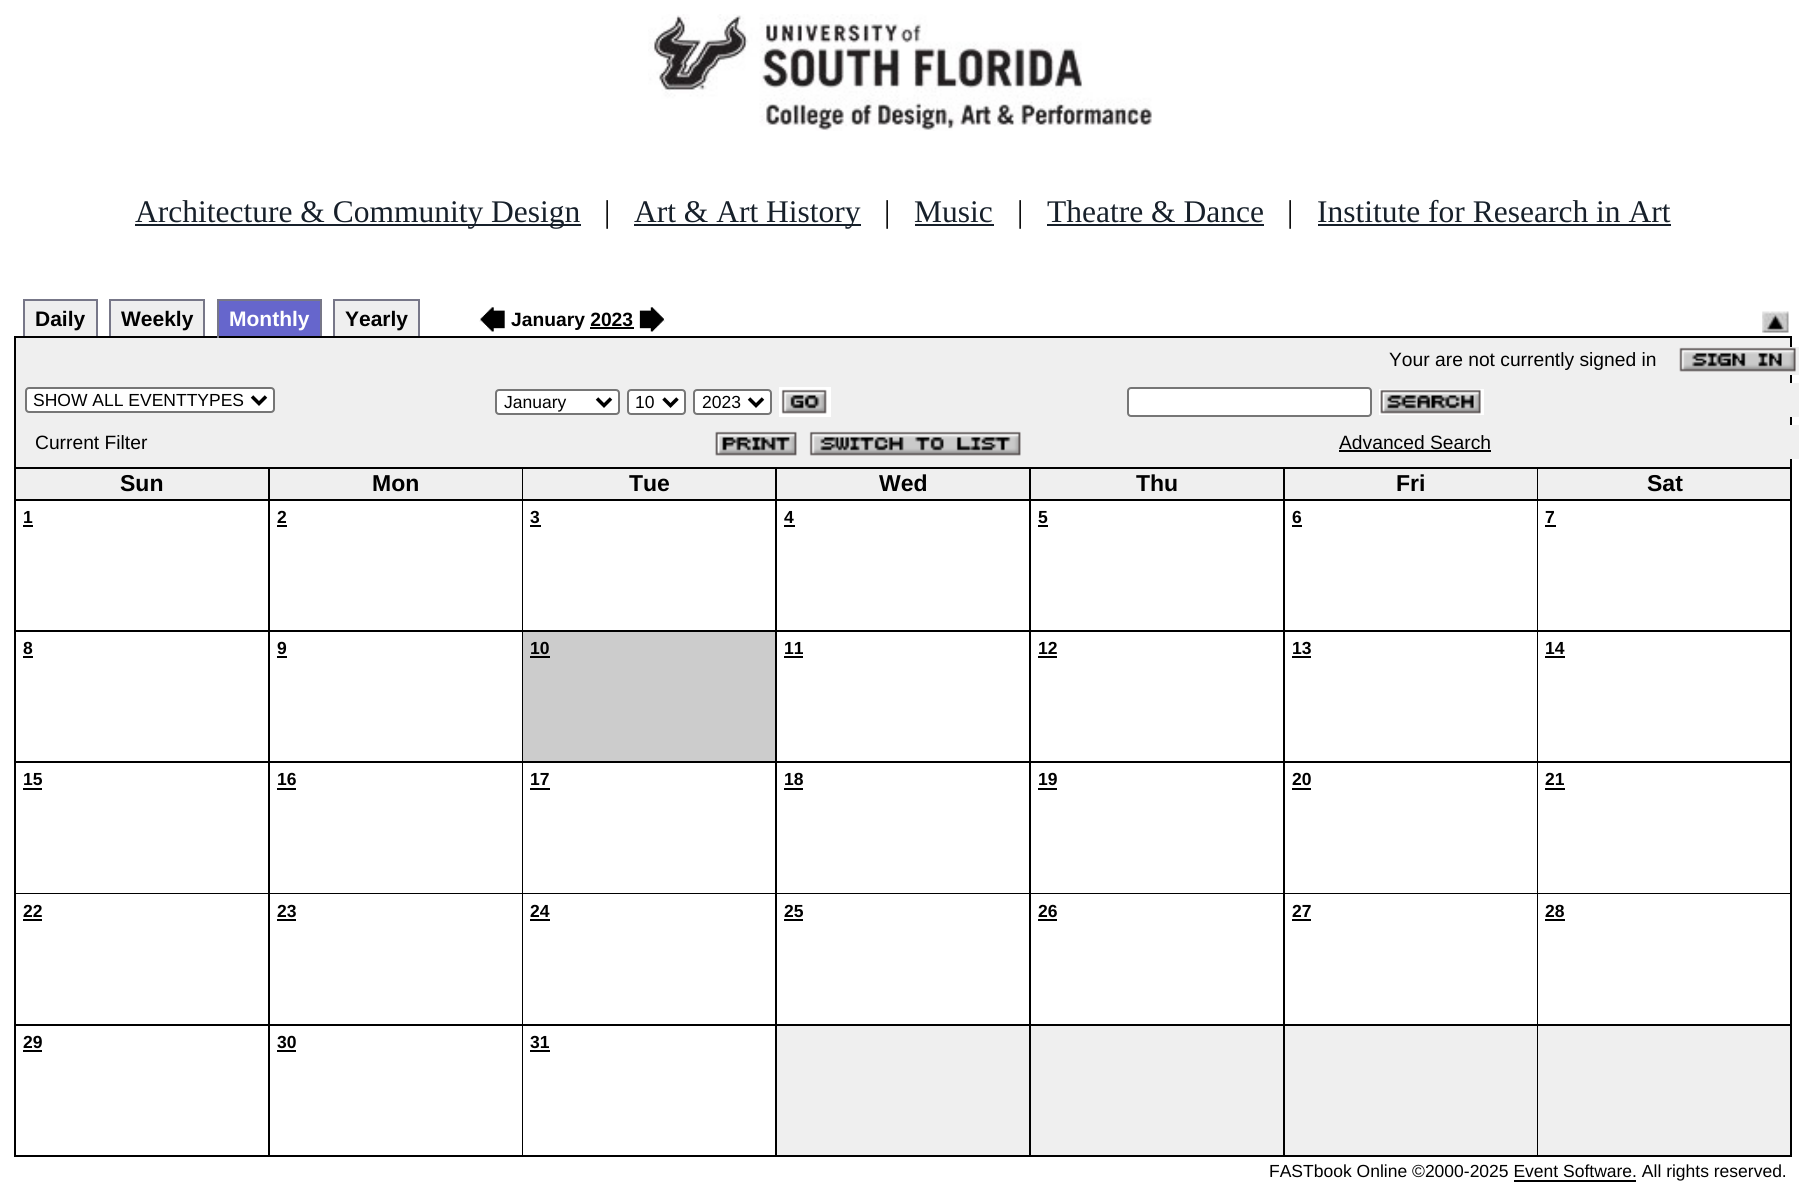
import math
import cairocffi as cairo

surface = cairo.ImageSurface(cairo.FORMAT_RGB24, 1805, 1203)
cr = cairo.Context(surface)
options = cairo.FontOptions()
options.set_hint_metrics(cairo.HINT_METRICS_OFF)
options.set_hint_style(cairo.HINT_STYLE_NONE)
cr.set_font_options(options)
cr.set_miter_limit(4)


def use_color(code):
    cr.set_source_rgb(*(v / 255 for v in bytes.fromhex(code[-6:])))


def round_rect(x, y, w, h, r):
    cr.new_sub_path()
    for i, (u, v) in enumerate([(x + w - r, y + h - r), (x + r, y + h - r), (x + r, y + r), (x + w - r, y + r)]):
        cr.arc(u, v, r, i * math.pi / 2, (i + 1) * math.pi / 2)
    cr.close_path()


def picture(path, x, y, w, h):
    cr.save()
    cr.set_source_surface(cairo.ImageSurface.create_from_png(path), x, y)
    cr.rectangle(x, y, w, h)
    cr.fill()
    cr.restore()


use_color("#ffffff")
cr.paint()
picture("img1.png", 648, 14, 504, 117)
use_color("#17202a")
cr.rectangle(135, 224, 446, 2)
cr.fill()
cr.select_font_face("Liberation Serif")
cr.set_font_size(31.5)
cr.move_to(135, 222)
cr.show_text("Architecture & Community Design")
use_color("#000000")
cr.move_to(604, 222)
cr.show_text("|")
use_color("#17202a")
cr.rectangle(634, 224, 227, 2)
cr.fill()
cr.move_to(634, 222)
cr.show_text("Art & Art History")
use_color("#000000")
cr.move_to(884, 222)
cr.show_text("|")
use_color("#17202a")
cr.move_to(914, 222)
cr.show_text("Music")
cr.rectangle(915, 224, 79, 2)
cr.fill()
use_color("#000000")
cr.move_to(1017, 222)
cr.show_text("|")
use_color("#17202a")
cr.move_to(1047, 222)
cr.show_text("Theatre & Dance")
cr.rectangle(1047, 224, 217, 2)
cr.fill()
use_color("#000000")
cr.move_to(1287, 222)
cr.show_text("|")
use_color("#17202a")
cr.move_to(1317, 222)
cr.show_text("Institute for Research in Art")
cr.rectangle(1318, 224, 353, 2)
cr.fill()
use_color("#efefef")
cr.rectangle(25, 301, 71, 35)
cr.fill()
cr.select_font_face("Liberation Sans", cairo.FONT_SLANT_NORMAL, cairo.FONT_WEIGHT_BOLD)
cr.set_font_size(21)
use_color("#000000")
cr.move_to(35, 326)
cr.show_text("Daily")
use_color("#777788")
cr.rectangle(23, 299, 75, 2)
cr.fill()
cr.rectangle(96, 299, 2, 37)
cr.fill()
cr.rectangle(23, 299, 2, 37)
cr.fill()
use_color("#efefef")
cr.rectangle(111, 301, 92, 35)
cr.fill()
use_color("#000000")
cr.move_to(121, 326)
cr.show_text("Weekly")
use_color("#777788")
cr.rectangle(109, 299, 96, 2)
cr.fill()
cr.rectangle(203, 299, 2, 37)
cr.fill()
cr.rectangle(109, 299, 2, 37)
cr.fill()
use_color("#6666cc")
cr.rectangle(219, 301, 101, 35)
cr.fill()
use_color("#ffffff")
cr.move_to(229, 326)
cr.show_text("Monthly")
use_color("#777788")
cr.rectangle(217, 299, 105, 2)
cr.fill()
use_color("#000000")
cr.rectangle(14, 336, 1778, 2)
cr.fill()
use_color("#777788")
cr.rectangle(320, 299, 2, 39)
cr.fill()
use_color("#000000")
cr.rectangle(320, 336, 2, 2)
cr.fill()
use_color("#777788")
cr.rectangle(217, 299, 2, 39)
cr.fill()
use_color("#efefef")
cr.rectangle(335, 301, 83, 35)
cr.fill()
use_color("#000000")
cr.move_to(345, 326)
cr.show_text("Yearly")
use_color("#777788")
cr.rectangle(333, 299, 87, 2)
cr.fill()
cr.rectangle(418, 299, 2, 37)
cr.fill()
cr.rectangle(333, 299, 2, 37)
cr.fill()
picture("img2.png", 479, 307, 26, 25)
cr.set_font_size(19.25)
use_color("#000000")
cr.move_to(511, 326)
cr.show_text("January 2023")
cr.rectangle(590, 327, 44, 2)
cr.fill()
picture("img3.png", 639, 307, 26, 25)
picture("img4.png", 1762, 311, 27, 22)
use_color("#efefef")
cr.rectangle(16, 338, 1774, 129)
cr.fill()
use_color("#000000")
cr.rectangle(1790, 336, 2, 131)
cr.fill()
cr.rectangle(14, 336, 2, 131)
cr.fill()
use_color("#efefef")
cr.rectangle(1790, 347, 9, 28)
cr.fill()
cr.select_font_face("Liberation Sans")
use_color("#000000")
cr.move_to(1389, 366)
cr.show_text("Your are not currently signed in")
picture("img5.png", 1679, 347, 117, 25)
use_color("#efefef")
cr.rectangle(1790, 383, 9, 34)
cr.fill()
use_color("#ffffff")
round_rect(26, 388, 248, 24, 3)
cr.fill_preserve()
use_color("#767676")
cr.stroke()
cr.new_path()
cr.move_to(252, 396.5)
cr.line_to(259, 403.5)
cr.line_to(266, 396.5)
use_color("#000000")
cr.set_line_width(3.5)
cr.stroke()
cr.set_font_size(17.5)
cr.move_to(33, 406)
cr.show_text("SHOW ALL EVENTTYPES")
use_color("#ffffff")
round_rect(496, 390, 123, 24, 3)
cr.fill_preserve()
use_color("#767676")
cr.set_line_width(2)
cr.stroke()
cr.new_path()
cr.move_to(597, 398.5)
cr.line_to(604, 405.5)
cr.line_to(611, 398.5)
use_color("#000000")
cr.set_line_width(3.5)
cr.stroke()
cr.move_to(504, 408)
cr.show_text("January")
use_color("#ffffff")
round_rect(628, 390, 57, 24, 3)
cr.fill_preserve()
use_color("#767676")
cr.set_line_width(2)
cr.stroke()
cr.new_path()
cr.move_to(663.5, 398.5)
cr.line_to(670.5, 405.5)
cr.line_to(677.5, 398.5)
use_color("#000000")
cr.set_line_width(3.5)
cr.stroke()
cr.move_to(635, 408)
cr.show_text("10")
use_color("#ffffff")
round_rect(694, 390, 77, 24, 3)
cr.fill_preserve()
use_color("#767676")
cr.set_line_width(2)
cr.stroke()
cr.new_path()
cr.move_to(749, 398.5)
cr.line_to(756, 405.5)
cr.line_to(763, 398.5)
use_color("#000000")
cr.set_line_width(3.5)
cr.stroke()
cr.move_to(702, 408)
cr.show_text("2023")
use_color("#ffffff")
cr.rectangle(779, 387, 52, 30)
cr.fill()
picture("img6.png", 781, 389, 46, 25)
round_rect(1128, 388, 243, 28, 3)
cr.fill_preserve()
use_color("#767676")
cr.set_line_width(2)
cr.stroke()
use_color("#ffffff")
cr.rectangle(1379, 389, 105, 26)
cr.fill()
picture("img7.png", 1380, 389, 101, 25)
use_color("#efefef")
cr.rectangle(1790, 425, 9, 34)
cr.fill()
cr.set_font_size(19.25)
use_color("#000000")
cr.move_to(35, 449)
cr.show_text("Current Filter")
picture("img8.png", 715, 431, 82, 25)
picture("img9.png", 809, 431, 212, 25)
cr.move_to(1339, 449)
cr.show_text("Advanced Search")
cr.rectangle(1339, 450, 152, 2)
cr.fill()
cr.rectangle(14, 467, 1778, 2)
cr.fill()
cr.rectangle(14, 467, 2, 690)
cr.fill()
use_color("#efefef")
cr.rectangle(16, 469, 1521, 30)
cr.fill()
use_color("#000000")
cr.rectangle(1790, 469, 2, 688)
cr.fill()
cr.rectangle(16, 499, 1776, 2)
cr.fill()
cr.rectangle(268, 469, 2, 688)
cr.fill()
cr.select_font_face("Liberation Sans", cairo.FONT_SLANT_NORMAL, cairo.FONT_WEIGHT_BOLD)
cr.set_font_size(23)
cr.move_to(120, 491)
cr.show_text("Sun")
cr.rectangle(522, 469, 2, 32)
cr.fill()
cr.move_to(372, 491)
cr.show_text("Mon")
use_color("#efefef")
cr.rectangle(523, 469, 1, 30)
cr.fill()
use_color("#000000")
cr.rectangle(775, 469, 2, 688)
cr.fill()
cr.move_to(629, 491)
cr.show_text("Tue")
cr.rectangle(1029, 469, 2, 688)
cr.fill()
cr.move_to(879, 491)
cr.show_text("Wed")
cr.rectangle(1283, 469, 2, 688)
cr.fill()
cr.move_to(1136, 491)
cr.show_text("Thu")
cr.rectangle(1537, 469, 2, 32)
cr.fill()
cr.move_to(1396, 491)
cr.show_text("Fri")
use_color("#efefef")
cr.rectangle(1538, 469, 252, 30)
cr.fill()
use_color("#000000")
cr.move_to(1647, 491)
cr.show_text("Sat")
cr.rectangle(16, 630, 254, 2)
cr.fill()
cr.set_font_size(17.5)
cr.move_to(23, 523)
cr.show_text("1")
cr.rectangle(23, 525, 10, 2)
cr.fill()
cr.rectangle(522, 501, 1, 656)
cr.fill()
cr.rectangle(270, 630, 1015, 2)
cr.fill()
cr.move_to(277, 523)
cr.show_text("2")
cr.rectangle(277, 525, 10, 2)
cr.fill()
cr.move_to(530, 523)
cr.show_text("3")
cr.rectangle(530, 525, 11, 2)
cr.fill()
cr.move_to(784, 523)
cr.show_text("4")
cr.rectangle(784, 525, 11, 2)
cr.fill()
cr.move_to(1038, 523)
cr.show_text("5")
cr.rectangle(1038, 525, 10, 2)
cr.fill()
cr.rectangle(1537, 501, 1, 656)
cr.fill()
cr.rectangle(1285, 630, 507, 2)
cr.fill()
cr.move_to(1292, 523)
cr.show_text("6")
cr.rectangle(1292, 525, 10, 2)
cr.fill()
cr.move_to(1545, 523)
cr.show_text("7")
cr.rectangle(1545, 525, 11, 2)
cr.fill()
cr.rectangle(16, 761, 1776, 2)
cr.fill()
cr.move_to(23, 654)
cr.show_text("8")
cr.rectangle(23, 656, 10, 2)
cr.fill()
cr.move_to(277, 654)
cr.show_text("9")
cr.rectangle(277, 656, 10, 2)
cr.fill()
use_color("#cccccc")
cr.rectangle(523, 632, 252, 129)
cr.fill()
use_color("#000000")
cr.move_to(530, 654)
cr.show_text("10")
cr.rectangle(530, 656, 20, 2)
cr.fill()
cr.move_to(784, 654)
cr.show_text("11")
cr.rectangle(784, 656, 19, 2)
cr.fill()
cr.move_to(1038, 654)
cr.show_text("12")
cr.rectangle(1038, 656, 19, 2)
cr.fill()
cr.move_to(1292, 654)
cr.show_text("13")
cr.rectangle(1292, 656, 19, 2)
cr.fill()
cr.move_to(1545, 654)
cr.show_text("14")
cr.rectangle(1545, 656, 20, 2)
cr.fill()
cr.rectangle(16, 893, 1776, 1)
cr.fill()
cr.move_to(23, 785)
cr.show_text("15")
cr.rectangle(23, 788, 19, 2)
cr.fill()
cr.move_to(277, 785)
cr.show_text("16")
cr.rectangle(277, 788, 19, 2)
cr.fill()
cr.move_to(530, 785)
cr.show_text("17")
cr.rectangle(530, 788, 20, 2)
cr.fill()
cr.move_to(784, 785)
cr.show_text("18")
cr.rectangle(784, 788, 19, 2)
cr.fill()
cr.move_to(1038, 785)
cr.show_text("19")
cr.rectangle(1038, 788, 19, 2)
cr.fill()
cr.move_to(1292, 785)
cr.show_text("20")
cr.rectangle(1292, 788, 19, 2)
cr.fill()
cr.move_to(1545, 785)
cr.show_text("21")
cr.rectangle(1545, 788, 20, 2)
cr.fill()
cr.rectangle(16, 1024, 1776, 2)
cr.fill()
cr.move_to(23, 917)
cr.show_text("22")
cr.rectangle(23, 919, 19, 2)
cr.fill()
cr.move_to(277, 917)
cr.show_text("23")
cr.rectangle(277, 919, 19, 2)
cr.fill()
cr.move_to(530, 917)
cr.show_text("24")
cr.rectangle(530, 919, 20, 2)
cr.fill()
cr.move_to(784, 917)
cr.show_text("25")
cr.rectangle(784, 919, 19, 2)
cr.fill()
cr.move_to(1038, 917)
cr.show_text("26")
cr.rectangle(1038, 919, 19, 2)
cr.fill()
cr.move_to(1292, 917)
cr.show_text("27")
cr.rectangle(1292, 919, 19, 2)
cr.fill()
cr.move_to(1545, 917)
cr.show_text("28")
cr.rectangle(1545, 919, 20, 2)
cr.fill()
cr.rectangle(16, 1155, 1776, 2)
cr.fill()
cr.move_to(23, 1048)
cr.show_text("29")
cr.rectangle(23, 1050, 19, 2)
cr.fill()
cr.move_to(277, 1048)
cr.show_text("30")
cr.rectangle(277, 1050, 19, 2)
cr.fill()
cr.move_to(530, 1048)
cr.show_text("31")
cr.rectangle(530, 1050, 20, 2)
cr.fill()
use_color("#efefef")
cr.rectangle(777, 1026, 252, 129)
cr.fill()
cr.rectangle(1031, 1026, 252, 129)
cr.fill()
cr.rectangle(1285, 1026, 252, 129)
cr.fill()
cr.rectangle(1538, 1026, 252, 129)
cr.fill()
cr.select_font_face("Liberation Sans")
use_color("#000000")
cr.move_to(1269, 1177)
cr.show_text("FASTbook Online ©2000-2025 Event Software. All rights reserved.")
cr.rectangle(1514, 1180, 122, 2)
cr.fill()
surface.write_to_png("result.png")
